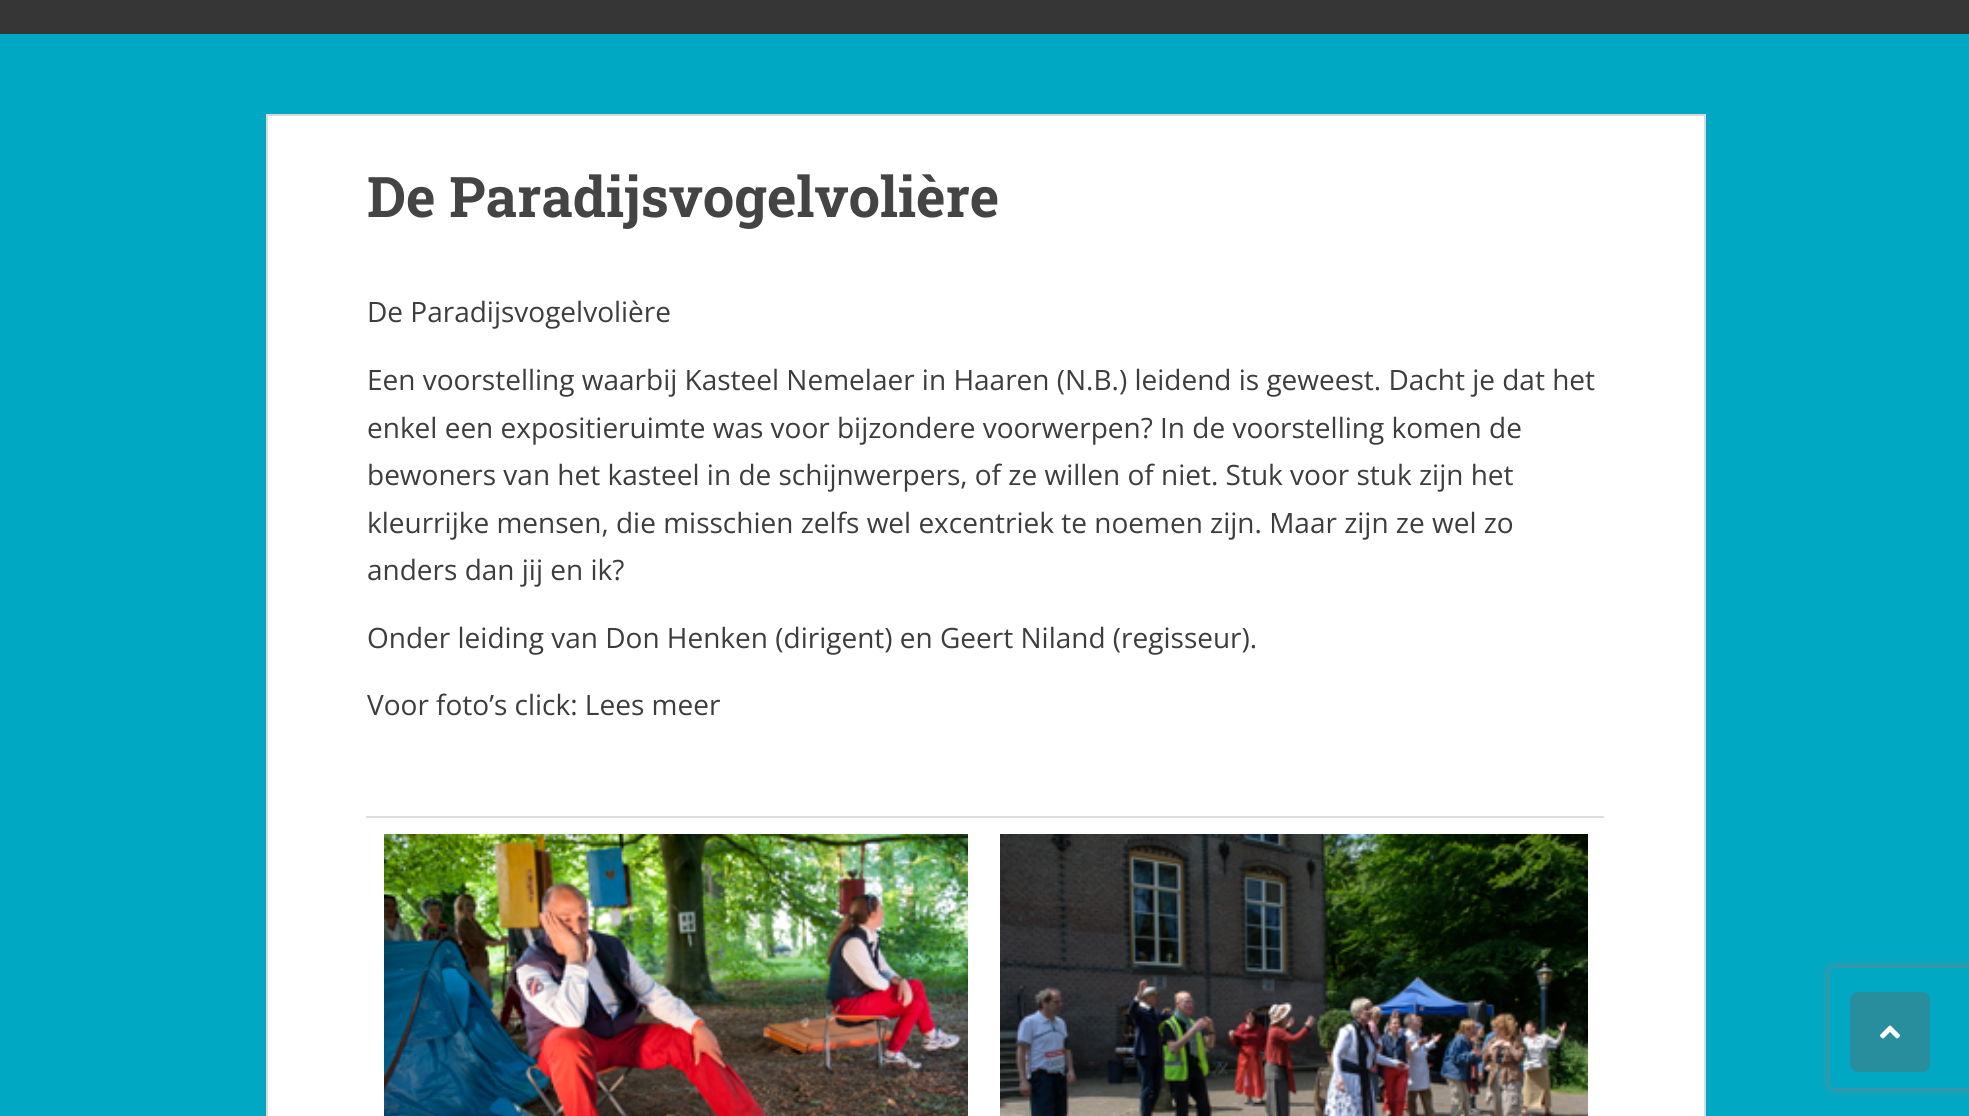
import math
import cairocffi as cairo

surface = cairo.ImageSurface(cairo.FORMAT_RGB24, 1969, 1116)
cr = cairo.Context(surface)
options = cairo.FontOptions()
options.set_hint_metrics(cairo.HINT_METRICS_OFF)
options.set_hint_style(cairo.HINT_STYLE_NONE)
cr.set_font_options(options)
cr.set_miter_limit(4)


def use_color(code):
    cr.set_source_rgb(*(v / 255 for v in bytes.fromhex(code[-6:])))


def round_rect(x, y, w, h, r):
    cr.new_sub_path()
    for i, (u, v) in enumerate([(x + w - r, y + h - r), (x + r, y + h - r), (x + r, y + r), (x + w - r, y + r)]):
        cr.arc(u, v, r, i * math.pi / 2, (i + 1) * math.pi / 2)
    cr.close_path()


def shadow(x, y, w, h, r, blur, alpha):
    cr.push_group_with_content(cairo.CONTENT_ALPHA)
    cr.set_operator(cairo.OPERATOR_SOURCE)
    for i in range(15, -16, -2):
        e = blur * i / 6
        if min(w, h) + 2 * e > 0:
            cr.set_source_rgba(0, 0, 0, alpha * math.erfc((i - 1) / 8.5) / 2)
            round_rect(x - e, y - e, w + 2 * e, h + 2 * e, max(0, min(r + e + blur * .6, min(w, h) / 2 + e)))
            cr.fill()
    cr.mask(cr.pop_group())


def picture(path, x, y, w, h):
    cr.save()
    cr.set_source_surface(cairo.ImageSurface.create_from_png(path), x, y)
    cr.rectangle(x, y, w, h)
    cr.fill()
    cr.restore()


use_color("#00a8c3")
cr.paint()
use_color("#363636")
cr.rectangle(0, 0, 1969, 34)
cr.fill()
use_color("#ffffff")
cr.rectangle(267, 115, 1438, 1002)
cr.fill_preserve()
use_color("#dadada")
cr.stroke()
cr.select_font_face("Roboto Slab", cairo.FONT_SLANT_NORMAL, cairo.FONT_WEIGHT_BOLD)
cr.set_font_size(56)
use_color("#444444")
cr.move_to(367, 217)
cr.show_text("De Paradijsvogelvolière")
cr.select_font_face("Open Sans")
cr.set_font_size(28)
use_color("#3d3d3d")
cr.move_to(367, 322)
cr.show_text("De Paradijsvogelvolière")
cr.move_to(367, 390)
cr.show_text("Een voorstelling waarbij Kasteel Nemelaer in Haaren (N.B.) leidend is geweest. Dacht je dat het")
cr.move_to(367, 438)
cr.show_text("enkel een expositieruimte was voor bijzondere voorwerpen? In de voorstelling komen de")
cr.move_to(367, 485)
cr.show_text("bewoners van het kasteel in de schijnwerpers, of ze willen of niet. Stuk voor stuk zijn het")
cr.move_to(367, 533)
cr.show_text("kleurrijke mensen, die misschien zelfs wel excentriek te noemen zijn. Maar zijn ze wel zo")
cr.move_to(367, 580)
cr.show_text("anders dan jij en ik?")
cr.move_to(367, 648)
cr.show_text("Onder leiding van Don Henken (dirigent) en Geert Niland (regisseur).")
cr.move_to(367, 715)
cr.show_text("Voor foto’s click: Lees meer")
use_color("#dddddd")
cr.rectangle(366, 816, 1238, 2)
cr.fill()
picture("img1.png", 1000, 834, 588, 282)
picture("img2.png", 384, 834, 584, 282)
cr.save()
cr.set_fill_rule(cairo.FILL_RULE_EVEN_ODD)
cr.new_path()
cr.move_to(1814, 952)
cr.line_to(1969, 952)
cr.line_to(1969, 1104)
cr.line_to(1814, 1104)
cr.close_path()
cr.move_to(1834, 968)
cr.line_to(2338, 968)
cr.curve_to(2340, 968, 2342, 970, 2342, 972)
cr.line_to(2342, 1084)
cr.curve_to(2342, 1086, 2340, 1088, 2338, 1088)
cr.line_to(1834, 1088)
cr.curve_to(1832, 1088, 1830, 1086, 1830, 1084)
cr.line_to(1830, 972)
cr.curve_to(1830, 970, 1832, 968, 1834, 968)
cr.close_path()
cr.clip()
use_color("#808080")
shadow(1830, 968, 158, 120, 4, 5, 1)
cr.restore()
use_color("#288d9d")
round_rect(1850, 992, 80, 80, 8)
cr.fill()
picture("img3.png", 1880, 1025, 20, 14)
surface.write_to_png("result.png")
